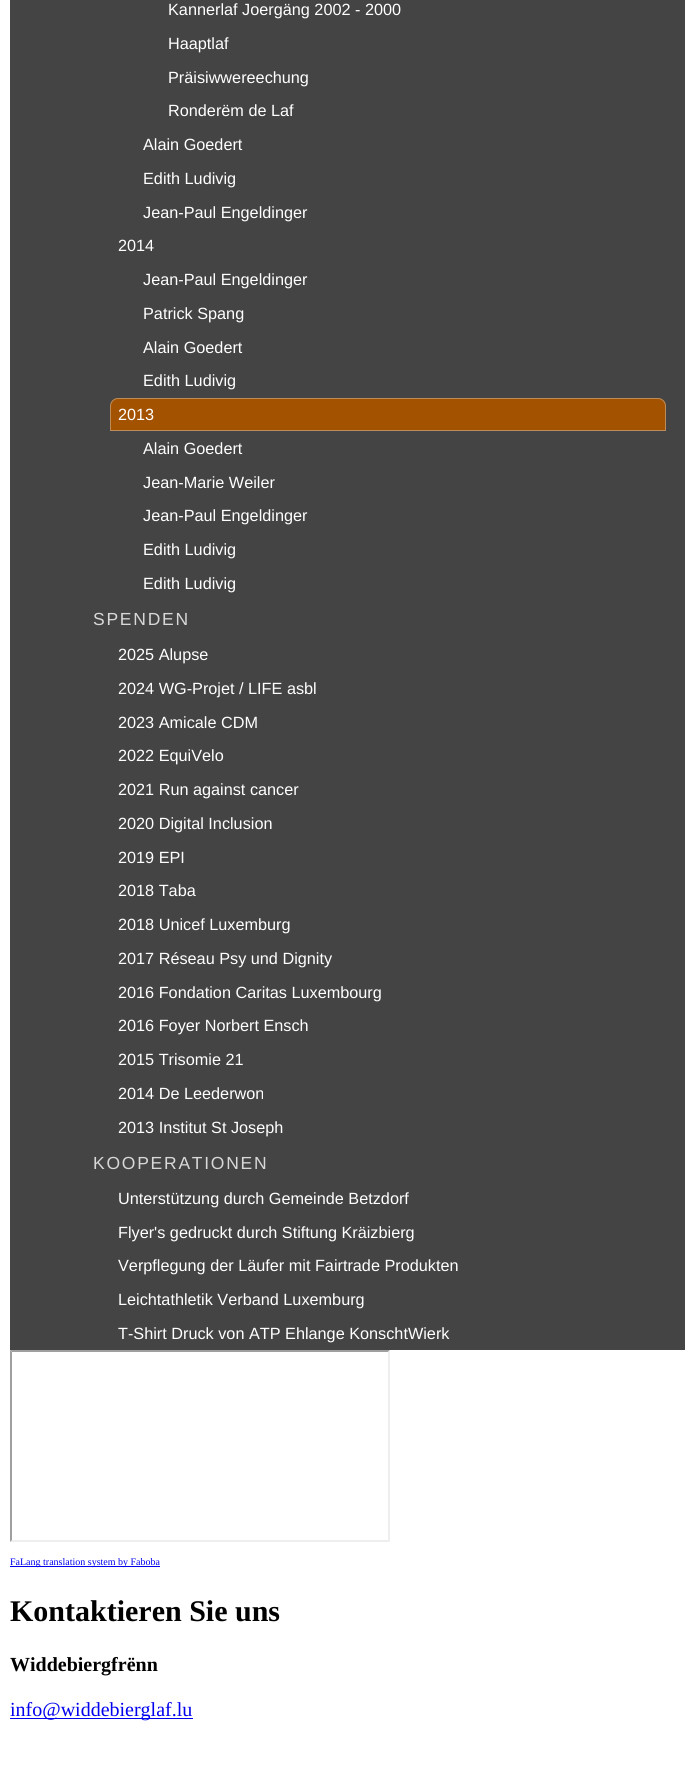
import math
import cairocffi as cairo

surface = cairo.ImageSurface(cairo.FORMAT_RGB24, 694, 1776)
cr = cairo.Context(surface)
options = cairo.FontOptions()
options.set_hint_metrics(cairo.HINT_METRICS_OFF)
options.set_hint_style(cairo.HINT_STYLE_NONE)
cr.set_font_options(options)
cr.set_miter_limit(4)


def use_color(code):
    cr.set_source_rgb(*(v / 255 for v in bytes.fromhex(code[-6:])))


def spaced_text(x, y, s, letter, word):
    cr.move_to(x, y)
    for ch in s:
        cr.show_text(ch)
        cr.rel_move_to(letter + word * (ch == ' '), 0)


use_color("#ffffff")
cr.paint()
use_color("#444444")
cr.rectangle(10, 0, 675, 1350)
cr.fill()
cr.select_font_face("Liberation Sans")
cr.set_font_size(16.25)
use_color("#ffffff")
cr.move_to(168, 15)
cr.show_text("Kannerlaf Joergäng 2002 - 2000")
cr.move_to(168, 49)
cr.show_text("Haaptlaf")
cr.move_to(168, 83)
cr.show_text("Präisiwwereechung")
cr.move_to(168, 116)
cr.show_text("Ronderëm de Laf")
cr.move_to(143, 150)
cr.show_text("Alain Goedert")
cr.move_to(143, 184)
cr.show_text("Edith Ludivig")
cr.move_to(143, 218)
cr.show_text("Jean-Paul Engeldinger")
cr.move_to(118, 251)
cr.show_text("2014")
cr.move_to(143, 285)
cr.show_text("Jean-Paul Engeldinger")
cr.move_to(143, 319)
cr.show_text("Patrick Spang")
cr.move_to(143, 353)
cr.show_text("Alain Goedert")
cr.move_to(143, 386)
cr.show_text("Edith Ludivig")
use_color("#a35200")
cr.new_path()
cr.move_to(118, 398)
cr.line_to(658, 398)
cr.curve_to(662.5, 398, 666, 401.5, 666, 406)
cr.line_to(666, 431)
cr.line_to(110, 431)
cr.line_to(110, 406)
cr.curve_to(110, 401.5, 113.5, 398, 118, 398)
cr.close_path()
cr.fill()
cr.new_path()
cr.move_to(118, 398.5)
cr.line_to(658, 398.5)
cr.curve_to(662, 398.5, 665.5, 402, 665.5, 406)
cr.line_to(665.5, 430.5)
cr.line_to(110.5, 430.5)
cr.line_to(110.5, 406)
cr.curve_to(110.5, 402, 114, 398.5, 118, 398.5)
cr.close_path()
cr.set_source_rgba(0.882, 0.882, 0.882, 0.4)
cr.set_line_width(1)
cr.stroke()
use_color("#ffffff")
cr.move_to(118, 420)
cr.show_text("2013")
cr.move_to(143, 454)
cr.show_text("Alain Goedert")
cr.move_to(143, 488)
cr.show_text("Jean-Marie Weiler")
cr.move_to(143, 521)
cr.show_text("Jean-Paul Engeldinger")
cr.move_to(143, 555)
cr.show_text("Edith Ludivig")
cr.move_to(143, 589)
cr.show_text("Edith Ludivig")
cr.set_font_size(17.5)
use_color("#d8d8d8")
spaced_text(93, 625, "SPENDEN", 1.75, 0)
cr.set_font_size(16.25)
use_color("#ffffff")
cr.move_to(118, 660)
cr.show_text("2025 Alupse")
cr.move_to(118, 694)
cr.show_text("2024 WG-Projet / LIFE asbl")
cr.move_to(118, 728)
cr.show_text("2023 Amicale CDM")
cr.move_to(118, 761)
cr.show_text("2022 EquiVelo")
cr.move_to(118, 795)
cr.show_text("2021 Run against cancer")
cr.move_to(118, 829)
cr.show_text("2020 Digital Inclusion")
cr.move_to(118, 863)
cr.show_text("2019 EPI")
cr.move_to(118, 896)
cr.show_text("2018 Taba")
cr.move_to(118, 930)
cr.show_text("2018 Unicef Luxemburg")
cr.move_to(118, 964)
cr.show_text("2017 Réseau Psy und Dignity")
cr.move_to(118, 998)
cr.show_text("2016 Fondation Caritas Luxembourg")
cr.move_to(118, 1031)
cr.show_text("2016 Foyer Norbert Ensch")
cr.move_to(118, 1065)
cr.show_text("2015 Trisomie 21")
cr.move_to(118, 1099)
cr.show_text("2014 De Leederwon")
cr.move_to(118, 1133)
cr.show_text("2013 Institut St Joseph")
cr.set_font_size(17.5)
use_color("#d8d8d8")
spaced_text(93, 1169, "KOOPERATIONEN", 1.75, 0)
cr.set_font_size(16.25)
use_color("#ffffff")
cr.move_to(118, 1204)
cr.show_text("Unterstützung durch Gemeinde Betzdorf")
cr.move_to(118, 1238)
cr.show_text("Flyer's gedruckt durch Stiftung Kräizbierg")
cr.move_to(118, 1271)
cr.show_text("Verpflegung der Läufer mit Fairtrade Produkten")
cr.move_to(118, 1305)
cr.show_text("Leichtathletik Verband Luxemburg")
cr.move_to(118, 1339)
cr.show_text("T-Shirt Druck von ATP Ehlange KonschtWierk")
use_color("#9f9f9f")
cr.new_path()
cr.move_to(10, 1350)
cr.line_to(390, 1350)
cr.line_to(388, 1352)
cr.line_to(12, 1352)
cr.close_path()
cr.fill()
use_color("#eeeeee")
cr.new_path()
cr.move_to(390, 1350)
cr.line_to(390, 1542)
cr.line_to(388, 1540)
cr.line_to(388, 1352)
cr.close_path()
cr.fill()
cr.new_path()
cr.move_to(390, 1542)
cr.line_to(10, 1542)
cr.line_to(12, 1540)
cr.line_to(388, 1540)
cr.close_path()
cr.fill()
use_color("#9f9f9f")
cr.new_path()
cr.move_to(10, 1542)
cr.line_to(10, 1350)
cr.line_to(12, 1352)
cr.line_to(12, 1540)
cr.close_path()
cr.fill()
use_color("#0000ee")
cr.rectangle(10, 1566, 150, 1)
cr.fill()
cr.select_font_face("Liberation Serif")
cr.set_font_size(10)
cr.move_to(10, 1565)
cr.show_text("FaLang translation system by Faboba")
cr.select_font_face("Liberation Serif", cairo.FONT_SLANT_NORMAL, cairo.FONT_WEIGHT_BOLD)
cr.set_font_size(30)
use_color("#000000")
cr.move_to(10, 1621)
cr.show_text("Kontaktieren Sie uns")
cr.set_font_size(20)
cr.move_to(10, 1671)
cr.show_text("Widdebiergfrënn")
use_color("#0000ee")
cr.rectangle(10, 1718, 183, 1)
cr.fill()
cr.select_font_face("Liberation Serif")
cr.move_to(10, 1716)
cr.show_text("info@widdebierglaf.lu")
surface.write_to_png("result.png")
